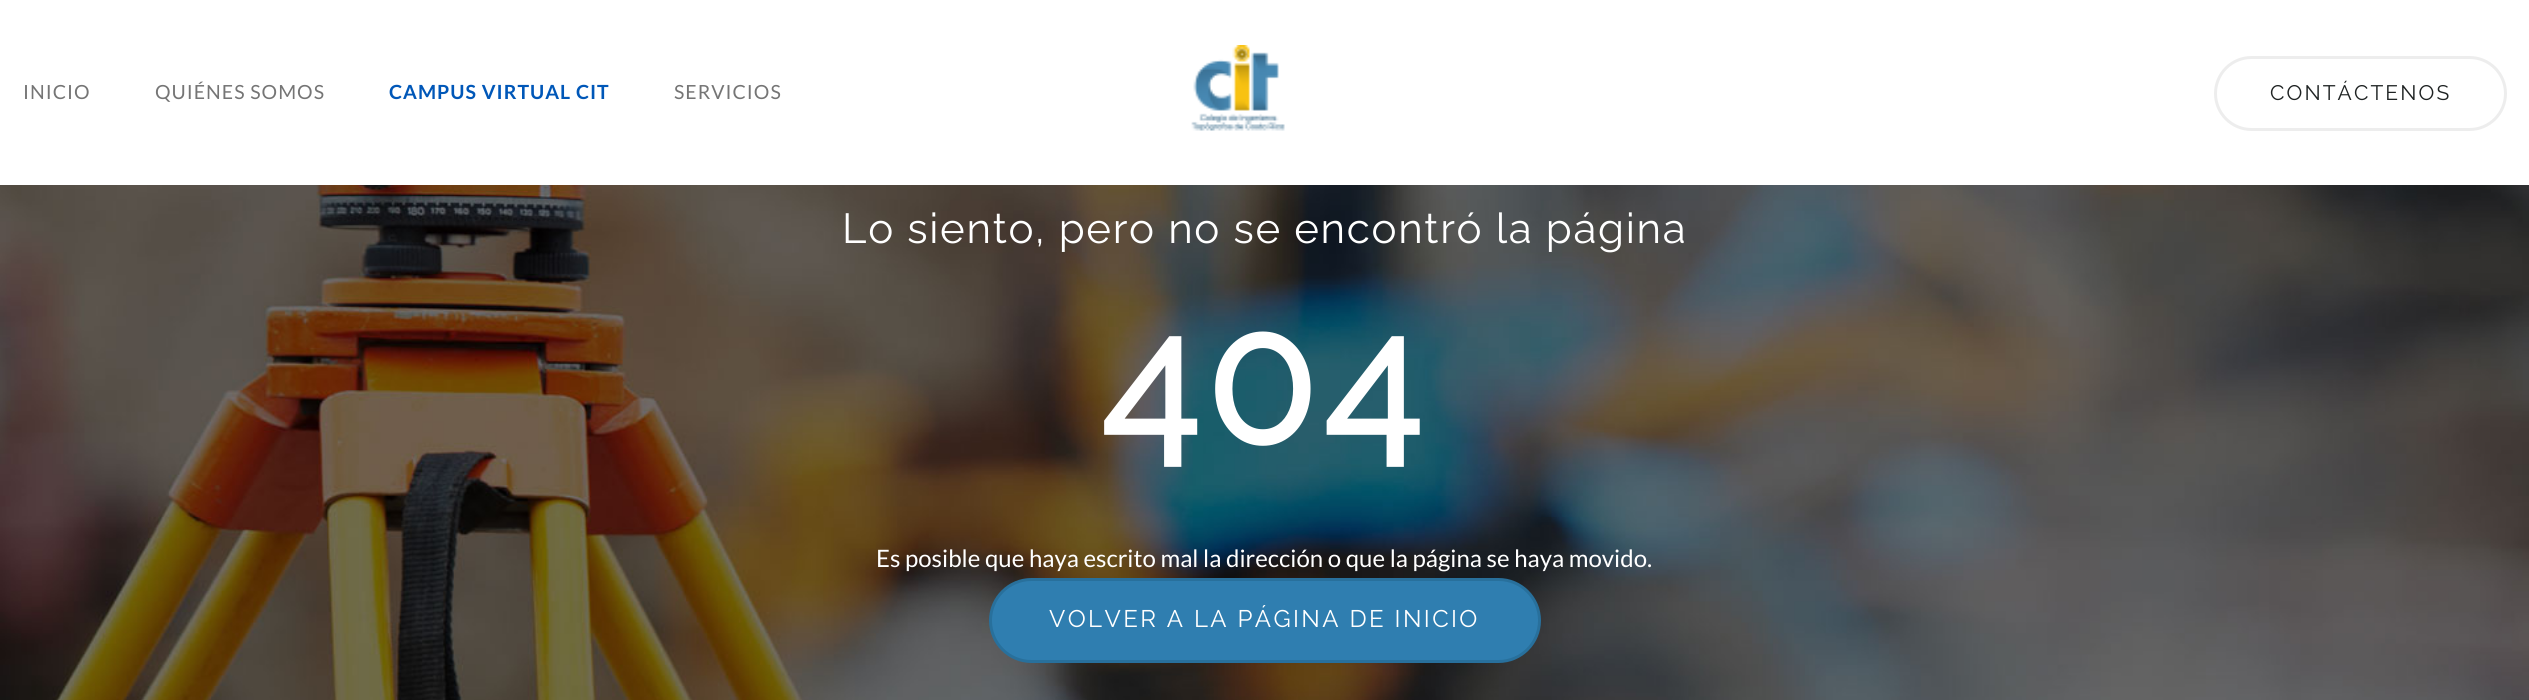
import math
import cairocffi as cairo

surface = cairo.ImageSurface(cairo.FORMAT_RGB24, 2529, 700)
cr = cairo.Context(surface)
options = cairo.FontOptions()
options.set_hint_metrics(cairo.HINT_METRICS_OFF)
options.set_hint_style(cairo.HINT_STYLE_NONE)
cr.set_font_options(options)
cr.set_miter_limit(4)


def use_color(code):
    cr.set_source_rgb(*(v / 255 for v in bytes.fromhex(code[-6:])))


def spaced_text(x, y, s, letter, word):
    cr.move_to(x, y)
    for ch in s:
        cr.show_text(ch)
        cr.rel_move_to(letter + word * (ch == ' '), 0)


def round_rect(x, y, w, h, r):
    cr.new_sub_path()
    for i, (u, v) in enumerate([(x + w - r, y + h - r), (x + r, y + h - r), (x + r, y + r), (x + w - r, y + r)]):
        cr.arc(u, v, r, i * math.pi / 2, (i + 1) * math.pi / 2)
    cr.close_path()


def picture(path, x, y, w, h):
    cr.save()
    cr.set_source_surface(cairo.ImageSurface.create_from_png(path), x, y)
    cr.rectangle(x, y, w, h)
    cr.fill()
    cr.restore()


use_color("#ffffff")
cr.paint()
picture("img1.png", 0, 185, 2529, 515)
cr.select_font_face("Lato")
cr.set_font_size(19.5)
use_color("#757575")
spaced_text(23, 99, "INICIO", 1, 0)
spaced_text(155, 99, "QUIÉNES SOMOS", 1, 0)
cr.select_font_face("Lato", cairo.FONT_SLANT_NORMAL, cairo.FONT_WEIGHT_BOLD)
use_color("#0057b8")
spaced_text(389, 99, "CAMPUS VIRTUAL CIT", 1, 0)
cr.select_font_face("Lato")
use_color("#757575")
spaced_text(674, 99, "SERVICIOS", 1, 0)
picture("img2.png", 1191, 45, 94, 86)
round_rect(2215.5, 57.5, 290, 72, 36)
use_color("#ededed")
cr.set_line_width(3)
cr.stroke()
cr.select_font_face("Raleway")
cr.set_font_size(21)
use_color("#1f2323")
spaced_text(2270, 100, "CONTÁCTENOS", 2.1, 0)
cr.set_font_size(42)
use_color("#ffffff")
spaced_text(842, 243, "Lo siento, pero no se encontró la página", 1.7, 0)
cr.select_font_face("Raleway", cairo.FONT_SLANT_NORMAL, cairo.FONT_WEIGHT_BOLD)
cr.set_font_size(180)
spaced_text(1100, 444, "404", 7, 0)
cr.select_font_face("Lato")
cr.set_font_size(24)
cr.move_to(876, 567)
cr.show_text("Es posible que haya escrito mal la dirección o que la página se haya movido.")
use_color("#2f7eb0")
round_rect(990.5, 579.5, 549, 82, 41)
cr.fill_preserve()
use_color("#28709c")
cr.stroke()
cr.select_font_face("Raleway")
use_color("#ffffff")
spaced_text(1049, 627, "VOLVER A LA PÁGINA DE INICIO", 2.4, 0)
surface.write_to_png("result.png")
